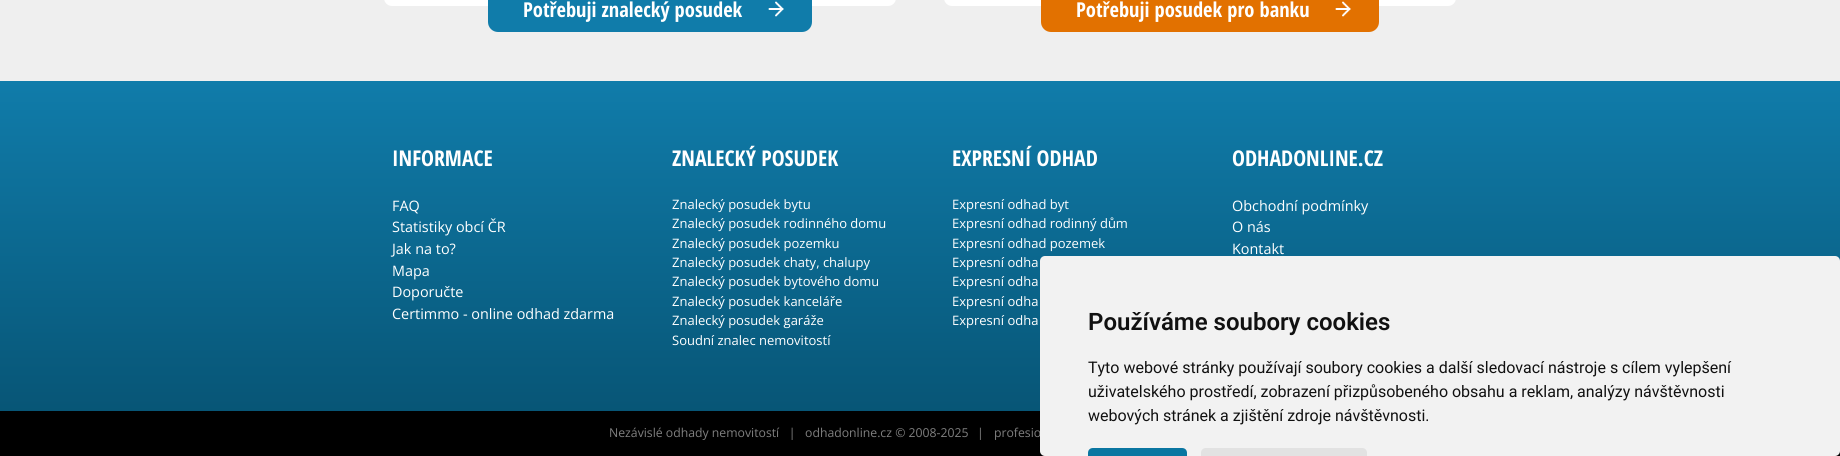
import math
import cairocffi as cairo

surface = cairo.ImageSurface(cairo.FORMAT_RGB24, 1840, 456)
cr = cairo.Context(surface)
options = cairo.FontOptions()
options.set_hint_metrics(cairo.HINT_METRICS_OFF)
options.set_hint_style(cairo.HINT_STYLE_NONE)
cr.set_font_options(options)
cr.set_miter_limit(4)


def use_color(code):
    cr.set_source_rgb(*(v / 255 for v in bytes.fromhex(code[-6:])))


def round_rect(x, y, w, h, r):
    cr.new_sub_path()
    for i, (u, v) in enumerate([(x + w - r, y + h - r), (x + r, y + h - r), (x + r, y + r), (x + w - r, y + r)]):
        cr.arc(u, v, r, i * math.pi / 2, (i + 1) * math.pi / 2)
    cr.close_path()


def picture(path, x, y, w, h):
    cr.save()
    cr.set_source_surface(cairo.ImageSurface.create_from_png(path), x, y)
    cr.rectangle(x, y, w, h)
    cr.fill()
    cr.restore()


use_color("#efefef")
cr.paint()
use_color("#ffffff")
round_rect(384, -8, 512, 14, 8)
cr.fill()
use_color("#107caa")
round_rect(488, -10, 324, 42, 10)
cr.fill()
picture("img1.png", 768, 1, 16, 16)
cr.select_font_face("Open Sans Condensed", cairo.FONT_SLANT_NORMAL, cairo.FONT_WEIGHT_BOLD)
cr.set_font_size(20.5)
use_color("#ffffff")
cr.move_to(523, 17)
cr.show_text("Potřebuji znalecký posudek")
round_rect(944, -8, 512, 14, 8)
cr.fill()
use_color("#e27100")
round_rect(1041, -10, 338, 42, 10)
cr.fill()
picture("img2.png", 1335, 1, 16, 16)
use_color("#ffffff")
cr.move_to(1076, 17)
cr.show_text("Potřebuji posudek pro banku")
gradient = cairo.LinearGradient(920, 81, 920, 456)
gradient.add_color_stop_rgba(0, 0.063, 0.486, 0.667, 1)
gradient.add_color_stop_rgba(1, 0.024, 0.314, 0.435, 1)
cr.set_source(gradient)
cr.rectangle(0, 81, 1840, 330)
cr.fill()
cr.set_font_size(21.75)
use_color("#ffffff")
cr.move_to(392, 166)
cr.show_text("INFORMACE")
cr.select_font_face("Open Sans")
cr.set_font_size(14.4)
cr.move_to(392, 211)
cr.show_text("FAQ")
cr.move_to(392, 232)
cr.show_text("Statistiky obcí ČR")
cr.move_to(392, 254)
cr.show_text("Jak na to?")
cr.move_to(392, 276)
cr.show_text("Mapa")
cr.move_to(392, 297)
cr.show_text("Doporučte")
cr.move_to(392, 319)
cr.show_text("Certimmo - online odhad zdarma")
cr.select_font_face("Open Sans Condensed", cairo.FONT_SLANT_NORMAL, cairo.FONT_WEIGHT_BOLD)
cr.set_font_size(21.75)
cr.move_to(672, 166)
cr.show_text("ZNALECKÝ POSUDEK")
cr.select_font_face("Open Sans")
cr.set_font_size(13)
cr.move_to(672, 209)
cr.show_text("Znalecký posudek bytu")
cr.move_to(672, 228)
cr.show_text("Znalecký posudek rodinného domu")
cr.move_to(672, 248)
cr.show_text("Znalecký posudek pozemku")
cr.move_to(672, 267)
cr.show_text("Znalecký posudek chaty, chalupy")
cr.move_to(672, 286)
cr.show_text("Znalecký posudek bytového domu")
cr.move_to(672, 306)
cr.show_text("Znalecký posudek kanceláře")
cr.move_to(672, 325)
cr.show_text("Znalecký posudek garáže")
cr.move_to(672, 345)
cr.show_text("Soudní znalec nemovitostí")
cr.select_font_face("Open Sans Condensed", cairo.FONT_SLANT_NORMAL, cairo.FONT_WEIGHT_BOLD)
cr.set_font_size(21.75)
cr.move_to(952, 166)
cr.show_text("EXPRESNÍ ODHAD")
cr.select_font_face("Open Sans")
cr.set_font_size(13)
cr.move_to(952, 209)
cr.show_text("Expresní odhad byt")
cr.move_to(952, 228)
cr.show_text("Expresní odhad rodinný dům")
cr.move_to(952, 248)
cr.show_text("Expresní odhad pozemek")
cr.move_to(952, 267)
cr.show_text("Expresní odha")
cr.move_to(952, 286)
cr.show_text("Expresní odha")
cr.move_to(952, 306)
cr.show_text("Expresní odha")
cr.move_to(952, 325)
cr.show_text("Expresní odha")
cr.select_font_face("Open Sans Condensed", cairo.FONT_SLANT_NORMAL, cairo.FONT_WEIGHT_BOLD)
cr.set_font_size(21.75)
cr.move_to(1232, 166)
cr.show_text("ODHADONLINE.CZ")
cr.select_font_face("Open Sans")
cr.set_font_size(14.4)
cr.move_to(1232, 211)
cr.show_text("Obchodní podmínky")
cr.move_to(1232, 232)
cr.show_text("O nás")
cr.move_to(1232, 254)
cr.show_text("Kontakt")
use_color("#000000")
cr.rectangle(0, 411, 1840, 45)
cr.fill()
cr.set_font_size(12.25)
use_color("#808080")
cr.move_to(609, 437)
cr.show_text("Nezávislé odhady nemovitostí   |   odhadonline.cz © 2008-2025")
cr.move_to(977, 437)
cr.show_text("|")
cr.move_to(994, 437)
cr.show_text("profesio")
use_color("#f2f2f2")
round_rect(1040, 256, 800, 200, 5)
cr.fill()
cr.select_font_face("Roboto SemiBold")
cr.set_font_size(24)
use_color("#111111")
cr.move_to(1088, 330)
cr.show_text("Používáme soubory cookies")
cr.select_font_face("Roboto")
cr.set_font_size(16)
cr.move_to(1088, 373)
cr.show_text("Tyto webové stránky používají soubory cookies a další sledovací nástroje s cílem vylepšení")
cr.move_to(1088, 397)
cr.show_text("uživatelského prostředí, zobrazení přizpůsobeného obsahu a reklam, analýzy návštěvnosti")
cr.move_to(1088, 421)
cr.show_text("webových stránek a zjištění zdroje návštěvnosti.")
use_color("#0a76a1")
cr.new_path()
cr.move_to(1093, 448)
cr.line_to(1182, 448)
cr.curve_to(1185, 448, 1187, 450, 1187, 453)
cr.line_to(1187, 456)
cr.line_to(1088, 456)
cr.line_to(1088, 453)
cr.curve_to(1088, 450, 1090, 448, 1093, 448)
cr.close_path()
cr.fill()
use_color("#e2e2e2")
cr.new_path()
cr.move_to(1206, 448)
cr.line_to(1362, 448)
cr.curve_to(1365, 448, 1367, 450, 1367, 453)
cr.line_to(1367, 456)
cr.line_to(1201, 456)
cr.line_to(1201, 453)
cr.curve_to(1201, 450, 1203, 448, 1206, 448)
cr.close_path()
cr.fill()
surface.write_to_png("result.png")
